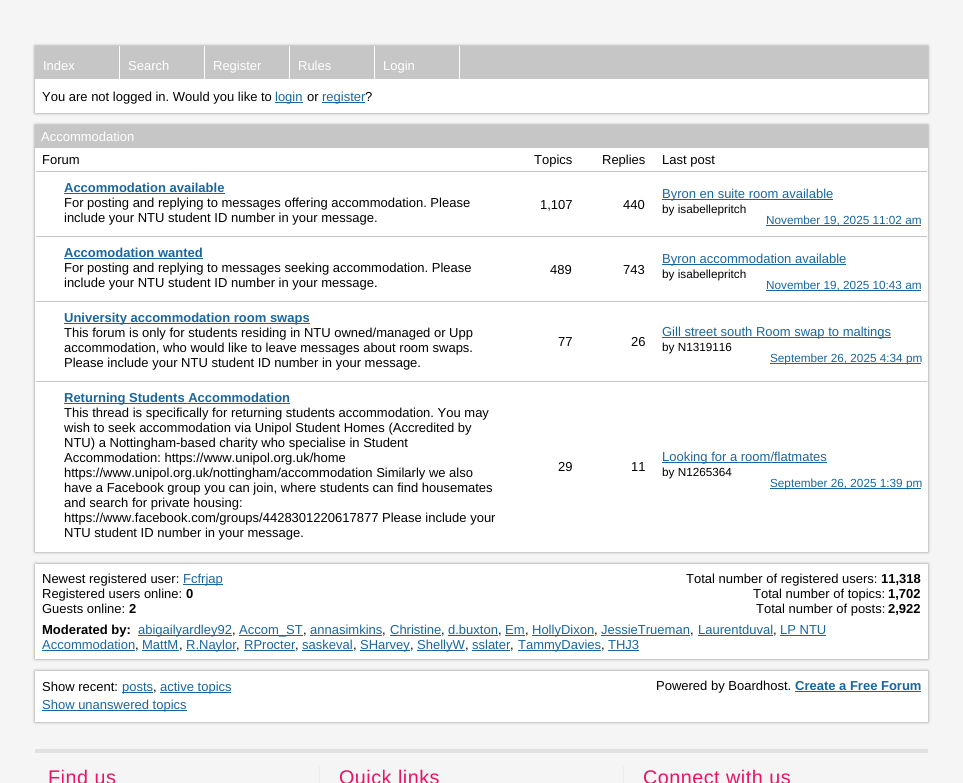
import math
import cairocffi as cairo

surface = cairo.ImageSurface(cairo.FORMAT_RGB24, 963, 783)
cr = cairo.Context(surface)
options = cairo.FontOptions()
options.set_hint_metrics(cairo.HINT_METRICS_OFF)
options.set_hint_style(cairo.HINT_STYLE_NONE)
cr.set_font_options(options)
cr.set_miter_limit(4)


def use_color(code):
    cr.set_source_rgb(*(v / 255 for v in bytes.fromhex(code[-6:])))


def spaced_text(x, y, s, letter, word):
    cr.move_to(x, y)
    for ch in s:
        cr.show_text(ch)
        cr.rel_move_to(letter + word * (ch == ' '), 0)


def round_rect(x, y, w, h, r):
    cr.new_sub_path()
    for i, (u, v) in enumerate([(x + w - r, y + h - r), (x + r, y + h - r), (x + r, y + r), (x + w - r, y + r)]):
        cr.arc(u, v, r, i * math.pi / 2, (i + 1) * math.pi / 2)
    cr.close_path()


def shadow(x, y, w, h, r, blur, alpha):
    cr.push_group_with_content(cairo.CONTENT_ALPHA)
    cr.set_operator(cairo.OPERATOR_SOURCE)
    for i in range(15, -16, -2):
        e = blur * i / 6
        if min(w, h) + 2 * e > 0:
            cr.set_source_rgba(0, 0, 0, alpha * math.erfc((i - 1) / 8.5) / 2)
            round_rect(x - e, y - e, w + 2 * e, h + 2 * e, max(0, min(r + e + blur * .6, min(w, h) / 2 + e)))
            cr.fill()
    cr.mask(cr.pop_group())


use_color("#f5f5f5")
cr.paint()
use_color("#888888")
shadow(35, 46, 893, 67, 0, 1.5, 1)
use_color("#ffffff")
cr.rectangle(35, 79, 893, 34)
cr.fill()
use_color("#c6c6c6")
cr.rectangle(35, 46, 893, 33)
cr.fill()
use_color("#ffffff")
cr.rectangle(119, 46, 1, 33)
cr.fill()
cr.select_font_face("Liberation Sans")
cr.set_font_size(13)
cr.move_to(43, 70)
cr.show_text("Index")
cr.rectangle(204, 46, 1, 33)
cr.fill()
cr.move_to(128, 70)
cr.show_text("Search")
cr.rectangle(289, 46, 1, 33)
cr.fill()
cr.move_to(213, 70)
cr.show_text("Register")
cr.rectangle(374, 46, 1, 33)
cr.fill()
cr.move_to(298, 70)
cr.show_text("Rules")
cr.rectangle(459, 46, 1, 33)
cr.fill()
cr.move_to(383, 70)
cr.show_text("Login")
use_color("#000000")
cr.move_to(42, 101)
cr.show_text("You are not logged in. Would you like to")
use_color("#19669f")
cr.rectangle(275, 102, 28, 1)
cr.fill()
cr.move_to(275, 101)
cr.show_text("login")
use_color("#000000")
cr.move_to(307, 101)
cr.show_text("or")
use_color("#19669f")
cr.rectangle(322, 102, 43, 1)
cr.fill()
cr.move_to(322, 101)
cr.show_text("register")
use_color("#000000")
cr.move_to(365, 101)
cr.show_text("?")
use_color("#888888")
shadow(35, 125, 893, 427, 0, 1.5, 1)
use_color("#c6c6c6")
cr.rectangle(35, 125, 893, 23)
cr.fill()
use_color("#ffffff")
cr.move_to(41, 141)
cr.show_text("Accommodation")
cr.rectangle(35, 148, 893, 404)
cr.fill()
use_color("#000000")
cr.move_to(42, 164)
cr.show_text("Forum")
cr.move_to(534, 164)
cr.show_text("Topics")
cr.move_to(602, 164)
cr.show_text("Replies")
cr.move_to(662, 164)
cr.show_text("Last post")
cr.select_font_face("Liberation Sans", cairo.FONT_SLANT_NORMAL, cairo.FONT_WEIGHT_BOLD)
use_color("#19669f")
cr.move_to(64, 192)
cr.show_text("Accommodation available")
cr.rectangle(64, 193, 161, 1)
cr.fill()
cr.select_font_face("Liberation Sans")
use_color("#000000")
cr.move_to(64, 207)
cr.show_text("For posting and replying to messages offering accommodation. Please")
cr.move_to(64, 222)
cr.show_text("include your NTU student ID number in your message.")
use_color("#c6c6c6")
cr.rectangle(36, 171, 891, 1)
cr.fill()
use_color("#000000")
cr.move_to(540, 209)
cr.show_text("1,107")
cr.move_to(623, 209)
cr.show_text("440")
use_color("#19669f")
cr.rectangle(662, 199, 171, 1)
cr.fill()
cr.move_to(662, 198)
cr.show_text("Byron en suite room available")
cr.set_font_size(11.75)
use_color("#000000")
cr.move_to(662, 213)
cr.show_text("by isabellepritch")
use_color("#19669f")
cr.rectangle(766, 225, 155, 1)
cr.fill()
cr.move_to(766, 224)
cr.show_text("November 19, 2025 11:02 am")
cr.select_font_face("Liberation Sans", cairo.FONT_SLANT_NORMAL, cairo.FONT_WEIGHT_BOLD)
cr.set_font_size(13)
cr.move_to(64, 257)
cr.show_text("Accomodation wanted")
cr.rectangle(64, 258, 139, 1)
cr.fill()
cr.select_font_face("Liberation Sans")
use_color("#000000")
cr.move_to(64, 272)
cr.show_text("For posting and replying to messages seeking accommodation. Please")
cr.move_to(64, 287)
cr.show_text("include your NTU student ID number in your message.")
use_color("#c6c6c6")
cr.rectangle(36, 236, 891, 1)
cr.fill()
use_color("#000000")
cr.move_to(550, 274)
cr.show_text("489")
cr.move_to(623, 274)
cr.show_text("743")
use_color("#19669f")
cr.rectangle(662, 264, 184, 1)
cr.fill()
cr.move_to(662, 263)
cr.show_text("Byron accommodation available")
cr.set_font_size(11.75)
use_color("#000000")
cr.move_to(662, 278)
cr.show_text("by isabellepritch")
use_color("#19669f")
cr.rectangle(766, 290, 155, 1)
cr.fill()
cr.move_to(766, 289)
cr.show_text("November 19, 2025 10:43 am")
cr.rectangle(64, 323, 246, 1)
cr.fill()
cr.select_font_face("Liberation Sans", cairo.FONT_SLANT_NORMAL, cairo.FONT_WEIGHT_BOLD)
cr.set_font_size(13)
cr.move_to(64, 322)
cr.show_text("University accommodation room swaps")
cr.select_font_face("Liberation Sans")
use_color("#000000")
cr.move_to(64, 337)
cr.show_text("This forum is only for students residing in NTU owned/managed or Upp")
cr.move_to(64, 352)
cr.show_text("accommodation, who would like to leave messages about room swaps.")
cr.move_to(64, 367)
cr.show_text("Please include your NTU student ID number in your message.")
use_color("#c6c6c6")
cr.rectangle(36, 301, 891, 1)
cr.fill()
use_color("#000000")
cr.move_to(558, 346)
cr.show_text("77")
cr.move_to(631, 346)
cr.show_text("26")
use_color("#19669f")
cr.rectangle(662, 337, 229, 1)
cr.fill()
cr.move_to(662, 336)
cr.show_text("Gill street south Room swap to maltings")
cr.set_font_size(11.75)
use_color("#000000")
cr.move_to(662, 351)
cr.show_text("by N1319116")
use_color("#19669f")
cr.rectangle(770, 363, 151, 1)
cr.fill()
cr.move_to(770, 362)
cr.show_text("September 26, 2025 4:34 pm")
cr.rectangle(64, 403, 226, 1)
cr.fill()
cr.select_font_face("Liberation Sans", cairo.FONT_SLANT_NORMAL, cairo.FONT_WEIGHT_BOLD)
cr.set_font_size(13)
cr.move_to(64, 402)
cr.show_text("Returning Students Accommodation")
cr.select_font_face("Liberation Sans")
use_color("#000000")
cr.move_to(64, 417)
cr.show_text("This thread is specifically for returning students accommodation. You may")
cr.move_to(64, 432)
cr.show_text("wish to seek accommodation via Unipol Student Homes (Accredited by")
cr.move_to(64, 447)
cr.show_text("NTU) a Nottingham-based charity who specialise in Student")
cr.move_to(64, 462)
cr.show_text("Accommodation: https://www.unipol.org.uk/home")
cr.move_to(64, 477)
cr.show_text("https://www.unipol.org.uk/nottingham/accommodation Similarly we also")
cr.move_to(64, 492)
cr.show_text("have a Facebook group you can join, where students can find housemates")
cr.move_to(64, 507)
cr.show_text("and search for private housing:")
cr.move_to(64, 522)
cr.show_text("https://www.facebook.com/groups/4428301220617877 Please include your")
cr.move_to(64, 537)
cr.show_text("NTU student ID number in your message.")
use_color("#c6c6c6")
cr.rectangle(36, 381, 891, 1)
cr.fill()
use_color("#000000")
cr.move_to(558, 471)
cr.show_text("29")
cr.move_to(631, 471)
cr.show_text("11")
use_color("#19669f")
cr.rectangle(662, 462, 165, 1)
cr.fill()
cr.move_to(662, 461)
cr.show_text("Looking for a room/flatmates")
cr.set_font_size(11.75)
use_color("#000000")
cr.move_to(662, 476)
cr.show_text("by N1265364")
use_color("#19669f")
cr.rectangle(770, 488, 151, 1)
cr.fill()
cr.move_to(770, 487)
cr.show_text("September 26, 2025 1:39 pm")
use_color("#888888")
shadow(35, 564, 893, 95, 0, 1.5, 1)
use_color("#ffffff")
cr.rectangle(35, 564, 893, 95)
cr.fill()
cr.set_font_size(13)
use_color("#000000")
cr.move_to(42, 583)
cr.show_text("Newest registered user:")
use_color("#19669f")
cr.rectangle(183, 584, 40, 1)
cr.fill()
cr.move_to(183, 583)
cr.show_text("Fcfrjap")
use_color("#000000")
cr.move_to(42, 598)
cr.show_text("Registered users online:")
cr.select_font_face("Liberation Sans", cairo.FONT_SLANT_NORMAL, cairo.FONT_WEIGHT_BOLD)
cr.move_to(186, 598)
cr.show_text("0")
cr.select_font_face("Liberation Sans")
cr.move_to(42, 613)
cr.show_text("Guests online:")
cr.select_font_face("Liberation Sans", cairo.FONT_SLANT_NORMAL, cairo.FONT_WEIGHT_BOLD)
cr.move_to(129, 613)
cr.show_text("2")
cr.select_font_face("Liberation Sans")
cr.move_to(686, 583)
cr.show_text("Total number of registered users:")
cr.select_font_face("Liberation Sans", cairo.FONT_SLANT_NORMAL, cairo.FONT_WEIGHT_BOLD)
cr.move_to(881, 583)
cr.show_text("11,318")
cr.select_font_face("Liberation Sans")
cr.move_to(753, 598)
cr.show_text("Total number of topics:")
cr.select_font_face("Liberation Sans", cairo.FONT_SLANT_NORMAL, cairo.FONT_WEIGHT_BOLD)
cr.move_to(888, 598)
cr.show_text("1,702")
cr.select_font_face("Liberation Sans")
cr.move_to(756, 613)
cr.show_text("Total number of posts:")
cr.select_font_face("Liberation Sans", cairo.FONT_SLANT_NORMAL, cairo.FONT_WEIGHT_BOLD)
cr.move_to(888, 613)
cr.show_text("2,922")
cr.move_to(42, 634)
cr.show_text("Moderated by:")
use_color("#19669f")
cr.rectangle(138, 635, 94, 1)
cr.fill()
cr.select_font_face("Liberation Sans")
cr.move_to(138, 634)
cr.show_text("abigailyardley92")
use_color("#000000")
cr.move_to(232, 634)
cr.show_text(",")
use_color("#19669f")
cr.rectangle(239, 635, 64, 1)
cr.fill()
cr.move_to(239, 634)
cr.show_text("Accom_ST")
use_color("#000000")
cr.move_to(303, 634)
cr.show_text(",")
use_color("#19669f")
cr.move_to(310, 634)
cr.show_text("annasimkins")
use_color("#000000")
cr.move_to(382, 634)
cr.show_text(",")
use_color("#19669f")
cr.rectangle(310, 635, 72, 1)
cr.fill()
cr.move_to(390, 634)
cr.show_text("Christine")
use_color("#000000")
cr.move_to(441, 634)
cr.show_text(",")
use_color("#19669f")
cr.rectangle(390, 635, 51, 1)
cr.fill()
cr.move_to(448, 634)
cr.show_text("d.buxton")
use_color("#000000")
cr.move_to(498, 634)
cr.show_text(",")
use_color("#19669f")
cr.rectangle(448, 635, 50, 1)
cr.fill()
cr.move_to(505, 634)
cr.show_text("Em")
use_color("#000000")
cr.move_to(525, 634)
cr.show_text(",")
use_color("#19669f")
cr.rectangle(505, 635, 20, 1)
cr.fill()
cr.rectangle(532, 635, 62, 1)
cr.fill()
cr.move_to(532, 634)
cr.show_text("HollyDixon")
use_color("#000000")
cr.move_to(594, 634)
cr.show_text(",")
use_color("#19669f")
cr.move_to(601, 634)
cr.show_text("JessieTrueman")
use_color("#000000")
cr.move_to(690, 634)
cr.show_text(",")
use_color("#19669f")
cr.rectangle(601, 635, 89, 1)
cr.fill()
cr.move_to(698, 634)
cr.show_text("Laurentduval")
use_color("#000000")
cr.move_to(773, 634)
cr.show_text(",")
use_color("#19669f")
cr.rectangle(698, 635, 75, 1)
cr.fill()
cr.move_to(780, 634)
cr.show_text("LP NTU")
cr.rectangle(780, 635, 46, 1)
cr.fill()
cr.move_to(42, 649)
cr.show_text("Accommodation")
use_color("#000000")
cr.move_to(135, 649)
cr.show_text(",")
use_color("#19669f")
cr.rectangle(42, 650, 93, 1)
cr.fill()
cr.move_to(142, 649)
cr.show_text("MattM")
use_color("#000000")
cr.move_to(179, 649)
cr.show_text(",")
use_color("#19669f")
cr.rectangle(142, 650, 37, 1)
cr.fill()
cr.rectangle(186, 650, 50, 1)
cr.fill()
cr.move_to(186, 649)
cr.show_text("R.Naylor")
use_color("#000000")
cr.move_to(236, 649)
cr.show_text(",")
use_color("#19669f")
cr.move_to(244, 649)
cr.show_text("RProcter")
use_color("#000000")
cr.move_to(295, 649)
cr.show_text(",")
use_color("#19669f")
cr.rectangle(244, 650, 51, 1)
cr.fill()
cr.move_to(302, 649)
cr.show_text("saskeval")
use_color("#000000")
cr.move_to(353, 649)
cr.show_text(",")
use_color("#19669f")
cr.rectangle(302, 650, 51, 1)
cr.fill()
cr.rectangle(360, 650, 50, 1)
cr.fill()
cr.move_to(360, 649)
cr.show_text("SHarvey")
use_color("#000000")
cr.move_to(410, 649)
cr.show_text(",")
use_color("#19669f")
cr.rectangle(417, 650, 48, 1)
cr.fill()
cr.move_to(417, 649)
cr.show_text("ShellyW")
use_color("#000000")
cr.move_to(465, 649)
cr.show_text(",")
use_color("#19669f")
cr.move_to(472, 649)
cr.show_text("sslater")
use_color("#000000")
cr.move_to(510, 649)
cr.show_text(",")
use_color("#19669f")
cr.rectangle(472, 650, 38, 1)
cr.fill()
cr.rectangle(518, 650, 83, 1)
cr.fill()
cr.move_to(518, 649)
cr.show_text("TammyDavies")
use_color("#000000")
cr.move_to(601, 649)
cr.show_text(",")
use_color("#19669f")
cr.move_to(608, 649)
cr.show_text("THJ3")
cr.rectangle(608, 650, 31, 1)
cr.fill()
use_color("#888888")
shadow(35, 671, 893, 51, 0, 1.5, 1)
use_color("#ffffff")
cr.rectangle(35, 671, 893, 51)
cr.fill()
use_color("#000000")
cr.move_to(42, 691)
cr.show_text("Show recent:")
use_color("#19669f")
cr.rectangle(122, 692, 31, 1)
cr.fill()
cr.move_to(122, 691)
cr.show_text("posts")
use_color("#000000")
cr.move_to(153, 691)
cr.show_text(",")
use_color("#19669f")
cr.rectangle(160, 692, 71, 1)
cr.fill()
cr.move_to(160, 691)
cr.show_text("active topics")
cr.rectangle(42, 710, 145, 1)
cr.fill()
cr.move_to(42, 709)
cr.show_text("Show unanswered topics")
use_color("#000000")
cr.move_to(656, 690)
cr.show_text("Powered by Boardhost.")
cr.select_font_face("Liberation Sans", cairo.FONT_SLANT_NORMAL, cairo.FONT_WEIGHT_BOLD)
use_color("#19669f")
cr.move_to(795, 690)
cr.show_text("Create a Free Forum")
cr.rectangle(795, 691, 126, 1)
cr.fill()
use_color("#e1e1e1")
cr.rectangle(35, 749, 893, 4)
cr.fill()
use_color("#ededed")
cr.rectangle(319, 766, 1, 17)
cr.fill()
cr.select_font_face("Liberation Sans")
cr.set_font_size(19.75)
use_color("#ed1165")
spaced_text(48, 784, "Find us", 0.5, 0)
use_color("#ededed")
cr.rectangle(623, 766, 1, 17)
cr.fill()
use_color("#ed1165")
spaced_text(339, 784, "Quick links", 0.5, 0)
spaced_text(643, 784, "Connect with us", 0.5, 0)
surface.write_to_png("result.png")
